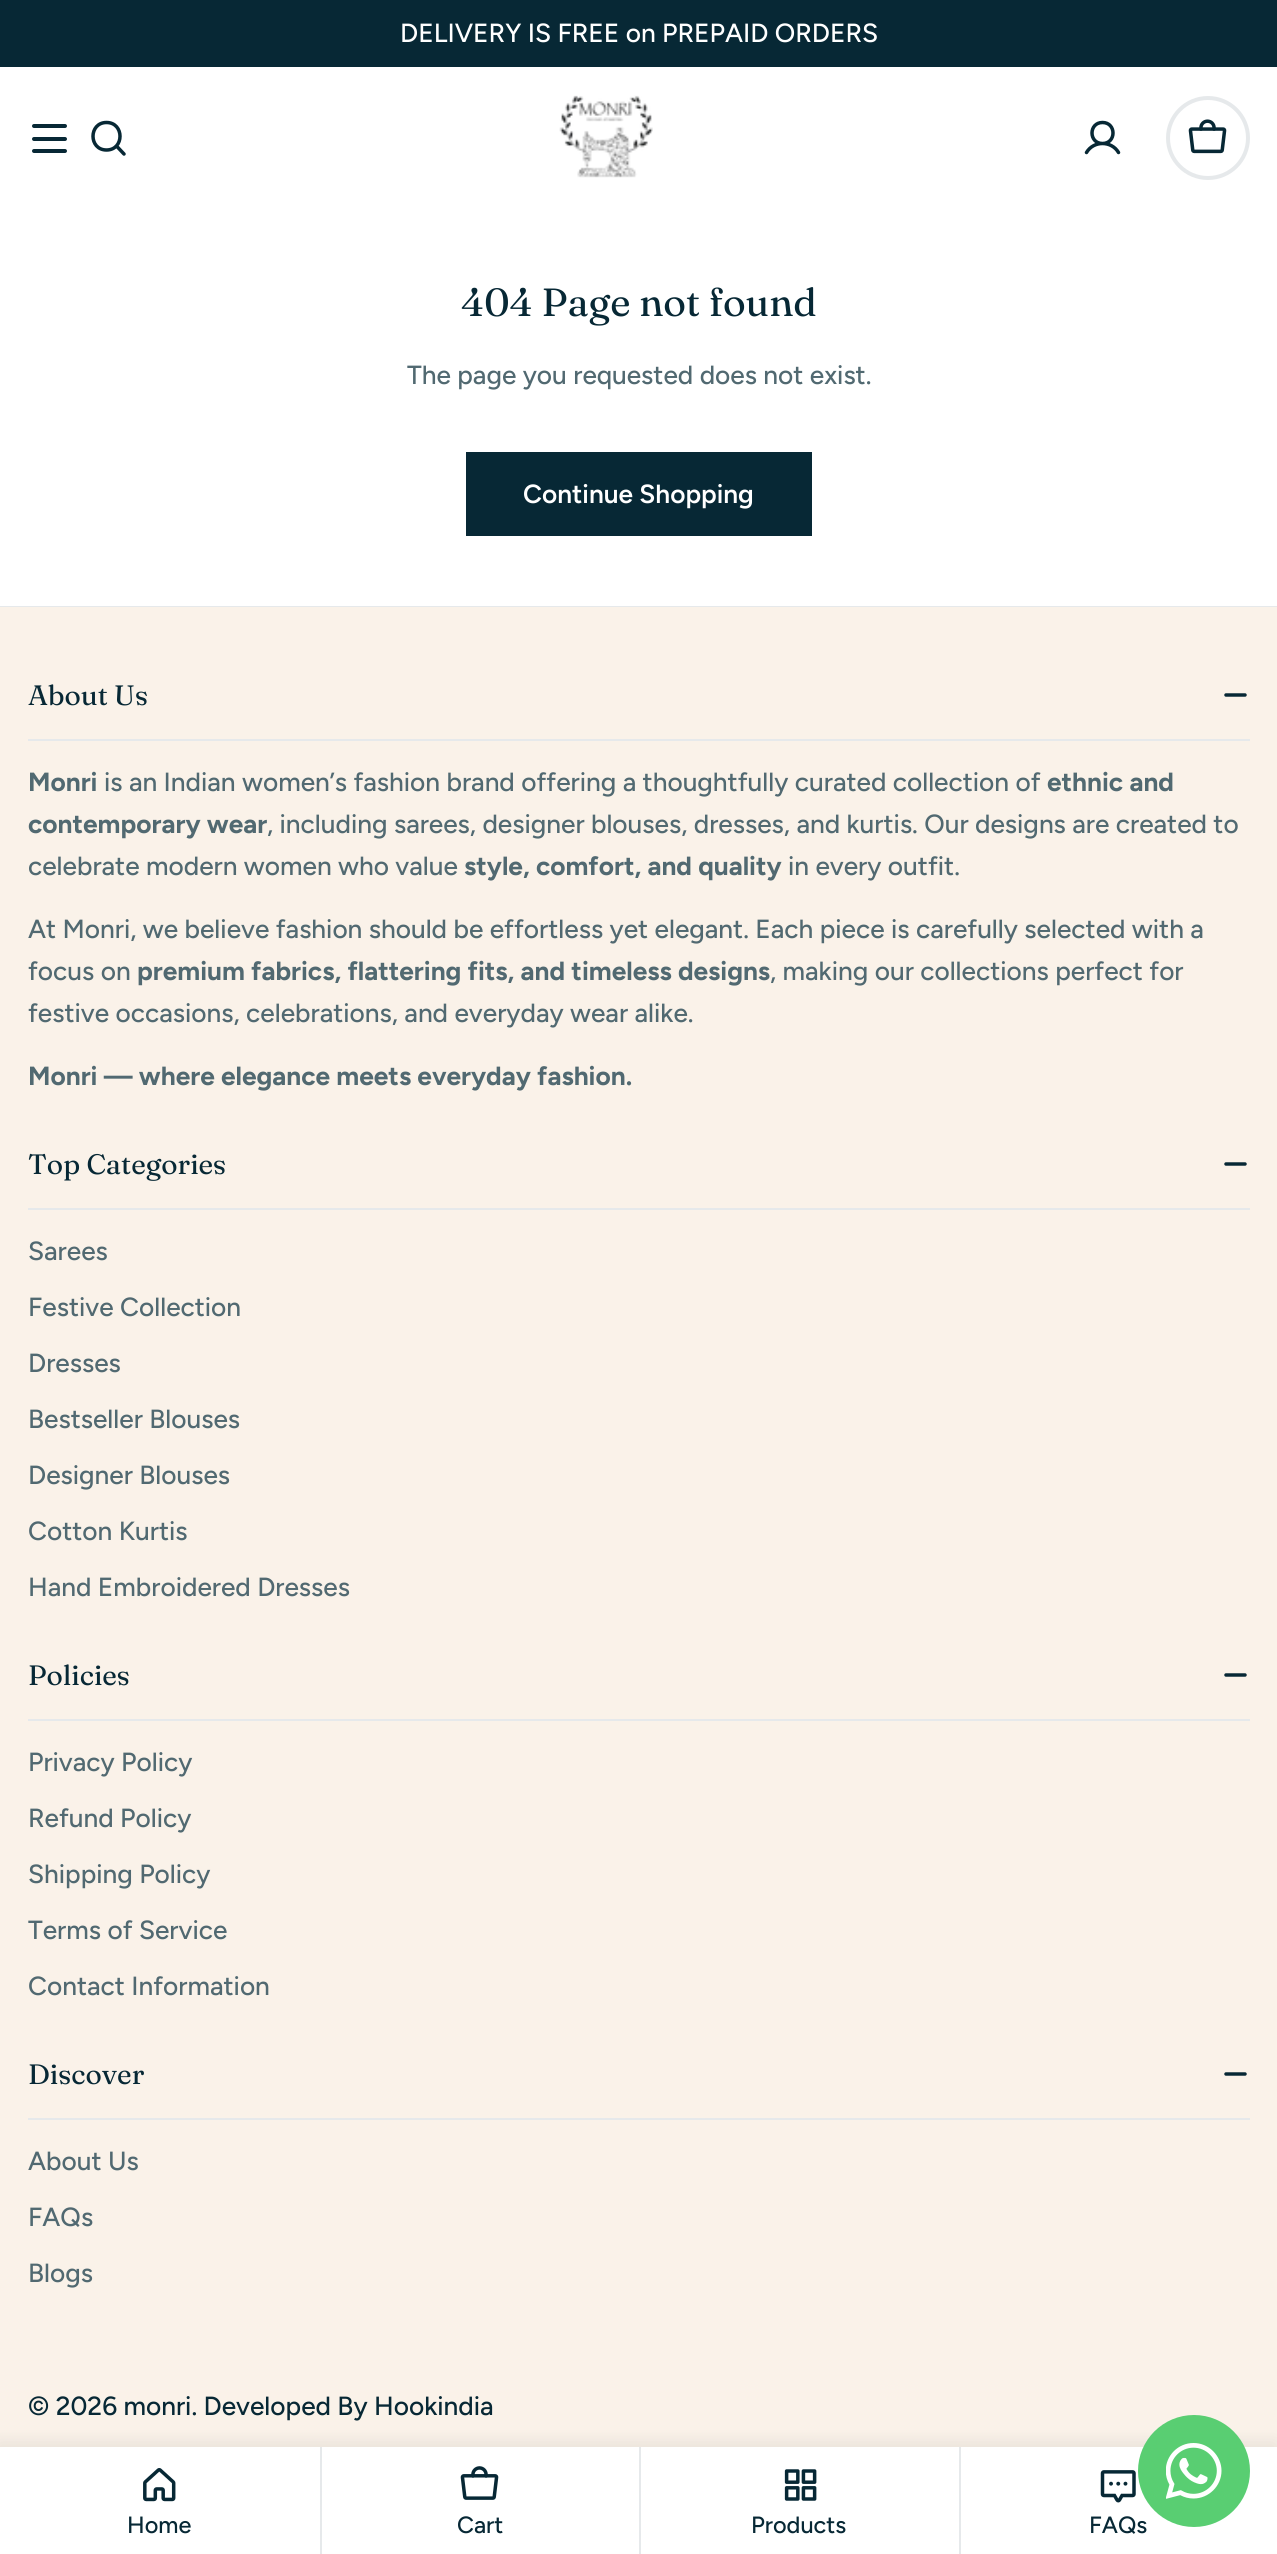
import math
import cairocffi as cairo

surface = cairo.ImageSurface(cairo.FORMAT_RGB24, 1277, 2554)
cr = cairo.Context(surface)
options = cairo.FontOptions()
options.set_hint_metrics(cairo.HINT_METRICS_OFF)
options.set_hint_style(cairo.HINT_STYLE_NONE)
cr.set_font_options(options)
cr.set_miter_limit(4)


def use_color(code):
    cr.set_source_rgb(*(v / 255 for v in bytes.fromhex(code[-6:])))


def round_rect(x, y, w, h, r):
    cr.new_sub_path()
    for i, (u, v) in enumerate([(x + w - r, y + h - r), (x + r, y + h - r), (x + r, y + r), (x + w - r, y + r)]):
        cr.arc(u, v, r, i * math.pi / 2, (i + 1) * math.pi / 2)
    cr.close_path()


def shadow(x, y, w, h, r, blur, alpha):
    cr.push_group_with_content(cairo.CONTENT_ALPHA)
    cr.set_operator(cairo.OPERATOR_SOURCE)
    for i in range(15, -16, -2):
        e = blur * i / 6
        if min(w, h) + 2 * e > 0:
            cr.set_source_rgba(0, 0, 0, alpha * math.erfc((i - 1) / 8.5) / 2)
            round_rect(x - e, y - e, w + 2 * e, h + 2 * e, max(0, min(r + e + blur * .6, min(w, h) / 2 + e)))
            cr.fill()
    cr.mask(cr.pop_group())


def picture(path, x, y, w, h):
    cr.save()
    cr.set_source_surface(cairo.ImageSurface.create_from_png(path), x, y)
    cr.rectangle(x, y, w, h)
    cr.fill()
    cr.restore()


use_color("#ffffff")
cr.paint()
use_color("#072835")
cr.rectangle(0, 0, 1277, 67)
cr.fill()
cr.select_font_face("Figtree Medium")
cr.set_font_size(26.25)
use_color("#ffffff")
cr.move_to(400, 42)
cr.show_text("DELIVERY IS FREE on PREPAID ORDERS")
use_color("#072835")
round_rect(32, 137, 35, 4, 2)
cr.fill()
round_rect(32, 124, 35, 4, 2)
cr.fill()
round_rect(32, 149, 35, 4, 2)
cr.fill()
cr.new_path()
cr.move_to(106.5, 150)
cr.curve_to(124.5, 150, 124.5, 122.5, 106.5, 122.5)
cr.curve_to(88.5, 122.5, 88.5, 150, 106.5, 150)
cr.close_path()
cr.move_to(116.5, 146)
cr.line_to(124, 154)
cr.set_line_width(3.5)
cr.set_line_cap(cairo.LINE_CAP_ROUND)
cr.set_line_join(cairo.LINE_JOIN_ROUND)
cr.stroke()
picture("img1.png", 559, 95, 94, 83)
cr.new_path()
cr.move_to(1102.5, 143.5)
cr.curve_to(1116.5, 143.5, 1116.5, 122.5, 1102.5, 122.5)
cr.curve_to(1088.5, 122.5, 1088.5, 143.5, 1102.5, 143.5)
cr.close_path()
cr.move_to(1086.5, 152.5)
cr.curve_to(1093.5, 140.5, 1111.5, 140.5, 1118.5, 152.5)
cr.stroke()
cr.arc(1208, 138, 40, 0, 2 * math.pi)
use_color("#e6e9eb")
cr.set_line_width(4)
cr.set_line_cap(cairo.LINE_CAP_BUTT)
cr.set_line_join(cairo.LINE_JOIN_MITER)
cr.stroke()
picture("img2.png", 1188, 119, 39, 35)
cr.select_font_face("Fraunces")
cr.set_font_size(39.25)
use_color("#072835")
cr.move_to(461, 316)
cr.show_text("404 Page not found")
cr.select_font_face("Figtree Medium")
cr.set_font_size(26.25)
use_color("#516971")
cr.move_to(407, 384)
cr.show_text("The page you requested does not exist.")
use_color("#072835")
cr.rectangle(466, 452, 346, 84)
cr.fill()
cr.select_font_face("Figtree SemiBold")
use_color("#ffffff")
cr.move_to(523, 503)
cr.show_text("Continue Shopping")
use_color("#e6e9eb")
cr.rectangle(0, 606, 1277, 1)
cr.fill()
use_color("#faf2e9")
cr.rectangle(0, 607, 1277, 1840)
cr.fill()
use_color("#e6e9eb")
cr.rectangle(28, 739, 1222, 2)
cr.fill()
cr.select_font_face("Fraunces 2")
cr.set_font_size(28)
use_color("#072835")
cr.move_to(28, 705)
cr.show_text("About Us")
cr.new_path()
cr.move_to(1226, 695)
cr.line_to(1245, 695)
cr.move_to(1226, 695)
cr.line_to(1245, 695)
cr.set_line_width(3.5)
cr.set_line_cap(cairo.LINE_CAP_ROUND)
cr.set_line_join(cairo.LINE_JOIN_ROUND)
cr.stroke()
cr.select_font_face("Figtree", cairo.FONT_SLANT_NORMAL, cairo.FONT_WEIGHT_BOLD)
cr.set_font_size(26.25)
use_color("#516971")
cr.move_to(28, 791)
cr.show_text("Monri")
cr.select_font_face("Figtree Medium")
cr.move_to(104, 791)
cr.show_text("is an Indian women’s fashion brand offering a thoughtfully curated collection of")
cr.select_font_face("Figtree", cairo.FONT_SLANT_NORMAL, cairo.FONT_WEIGHT_BOLD)
cr.move_to(1047, 791)
cr.show_text("ethnic and")
cr.move_to(28, 833)
cr.show_text("contemporary wear")
cr.select_font_face("Figtree Medium")
cr.move_to(267, 833)
cr.show_text(", including sarees, designer blouses, dresses, and kurtis. Our designs are created to")
cr.move_to(28, 875)
cr.show_text("celebrate modern women who value")
cr.select_font_face("Figtree", cairo.FONT_SLANT_NORMAL, cairo.FONT_WEIGHT_BOLD)
cr.move_to(464, 875)
cr.show_text("style, comfort, and quality")
cr.select_font_face("Figtree Medium")
cr.move_to(788, 875)
cr.show_text("in every outfit.")
cr.move_to(28, 938)
cr.show_text("At Monri, we believe fashion should be effortless yet elegant. Each piece is carefully selected with a")
cr.move_to(28, 980)
cr.show_text("focus on")
cr.select_font_face("Figtree", cairo.FONT_SLANT_NORMAL, cairo.FONT_WEIGHT_BOLD)
cr.move_to(137, 980)
cr.show_text("premium fabrics, flattering fits, and timeless designs")
cr.select_font_face("Figtree Medium")
cr.move_to(770, 980)
cr.show_text(", making our collections perfect for")
cr.move_to(28, 1022)
cr.show_text("festive occasions, celebrations, and everyday wear alike.")
cr.select_font_face("Figtree", cairo.FONT_SLANT_NORMAL, cairo.FONT_WEIGHT_BOLD)
cr.move_to(28, 1085)
cr.show_text("Monri — where elegance meets everyday fashion.")
use_color("#e6e9eb")
cr.rectangle(28, 1208, 1222, 2)
cr.fill()
cr.select_font_face("Fraunces 2")
cr.set_font_size(28)
use_color("#072835")
cr.move_to(28, 1174)
cr.show_text("Top Categories")
cr.new_path()
cr.move_to(1226, 1164)
cr.line_to(1245, 1164)
cr.move_to(1226, 1164)
cr.line_to(1245, 1164)
cr.stroke()
cr.select_font_face("Figtree Medium")
cr.set_font_size(26.25)
use_color("#516971")
cr.move_to(28, 1260)
cr.show_text("Sarees")
cr.move_to(28, 1316)
cr.show_text("Festive Collection")
cr.move_to(28, 1372)
cr.show_text("Dresses")
cr.move_to(28, 1428)
cr.show_text("Bestseller Blouses")
cr.move_to(28, 1484)
cr.show_text("Designer Blouses")
cr.move_to(28, 1540)
cr.show_text("Cotton Kurtis")
cr.move_to(28, 1596)
cr.show_text("Hand Embroidered Dresses")
use_color("#e6e9eb")
cr.rectangle(28, 1719, 1222, 2)
cr.fill()
cr.select_font_face("Fraunces 2")
cr.set_font_size(28)
use_color("#072835")
cr.move_to(28, 1685)
cr.show_text("Policies")
cr.new_path()
cr.move_to(1226, 1675)
cr.line_to(1245, 1675)
cr.move_to(1226, 1675)
cr.line_to(1245, 1675)
cr.stroke()
cr.select_font_face("Figtree Medium")
cr.set_font_size(26.25)
use_color("#516971")
cr.move_to(28, 1771)
cr.show_text("Privacy Policy")
cr.move_to(28, 1827)
cr.show_text("Refund Policy")
cr.move_to(28, 1883)
cr.show_text("Shipping Policy")
cr.move_to(28, 1939)
cr.show_text("Terms of Service")
cr.move_to(28, 1995)
cr.show_text("Contact Information")
use_color("#e6e9eb")
cr.rectangle(28, 2118, 1222, 2)
cr.fill()
cr.select_font_face("Fraunces 2")
cr.set_font_size(28)
use_color("#072835")
cr.move_to(28, 2084)
cr.show_text("Discover")
cr.new_path()
cr.move_to(1226, 2074)
cr.line_to(1245, 2074)
cr.move_to(1226, 2074)
cr.line_to(1245, 2074)
cr.stroke()
cr.select_font_face("Figtree Medium")
cr.set_font_size(26.25)
use_color("#516971")
cr.move_to(28, 2170)
cr.show_text("About Us")
cr.move_to(28, 2226)
cr.show_text("FAQs")
cr.move_to(28, 2282)
cr.show_text("Blogs")
use_color("#072835")
cr.move_to(28, 2415)
cr.show_text("© 2026 monri. Developed By Hookindia")
use_color("#000000")
shadow(-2, 2443, 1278, 109, 0, 9, 0.08)
use_color("#ffffff")
cr.rectangle(0, 2447, 1277, 107)
cr.fill()
picture("img3.png", 143, 2468, 33, 34)
cr.set_font_size(23.5)
use_color("#072835")
cr.move_to(127, 2533)
cr.show_text("Home")
use_color("#e6e9eb")
cr.rectangle(320, 2447, 2, 107)
cr.fill()
picture("img4.png", 460, 2466, 39, 34)
use_color("#072835")
cr.move_to(457, 2533)
cr.show_text("Cart")
use_color("#e6e9eb")
cr.rectangle(639, 2447, 2, 107)
cr.fill()
picture("img5.png", 784, 2469, 33, 32)
use_color("#072835")
cr.move_to(751, 2533)
cr.show_text("Products")
use_color("#e6e9eb")
cr.rectangle(959, 2447, 2, 107)
cr.fill()
picture("img6.png", 1100, 2470, 36, 33)
use_color("#072835")
cr.move_to(1089, 2533)
cr.show_text("FAQs")
use_color("#59ce72")
cr.new_path()
cr.arc(1194, 2471, 56, 0, 2 * math.pi)
cr.fill()
picture("img7.png", 1166, 2443, 56, 56)
surface.write_to_png("result.png")
